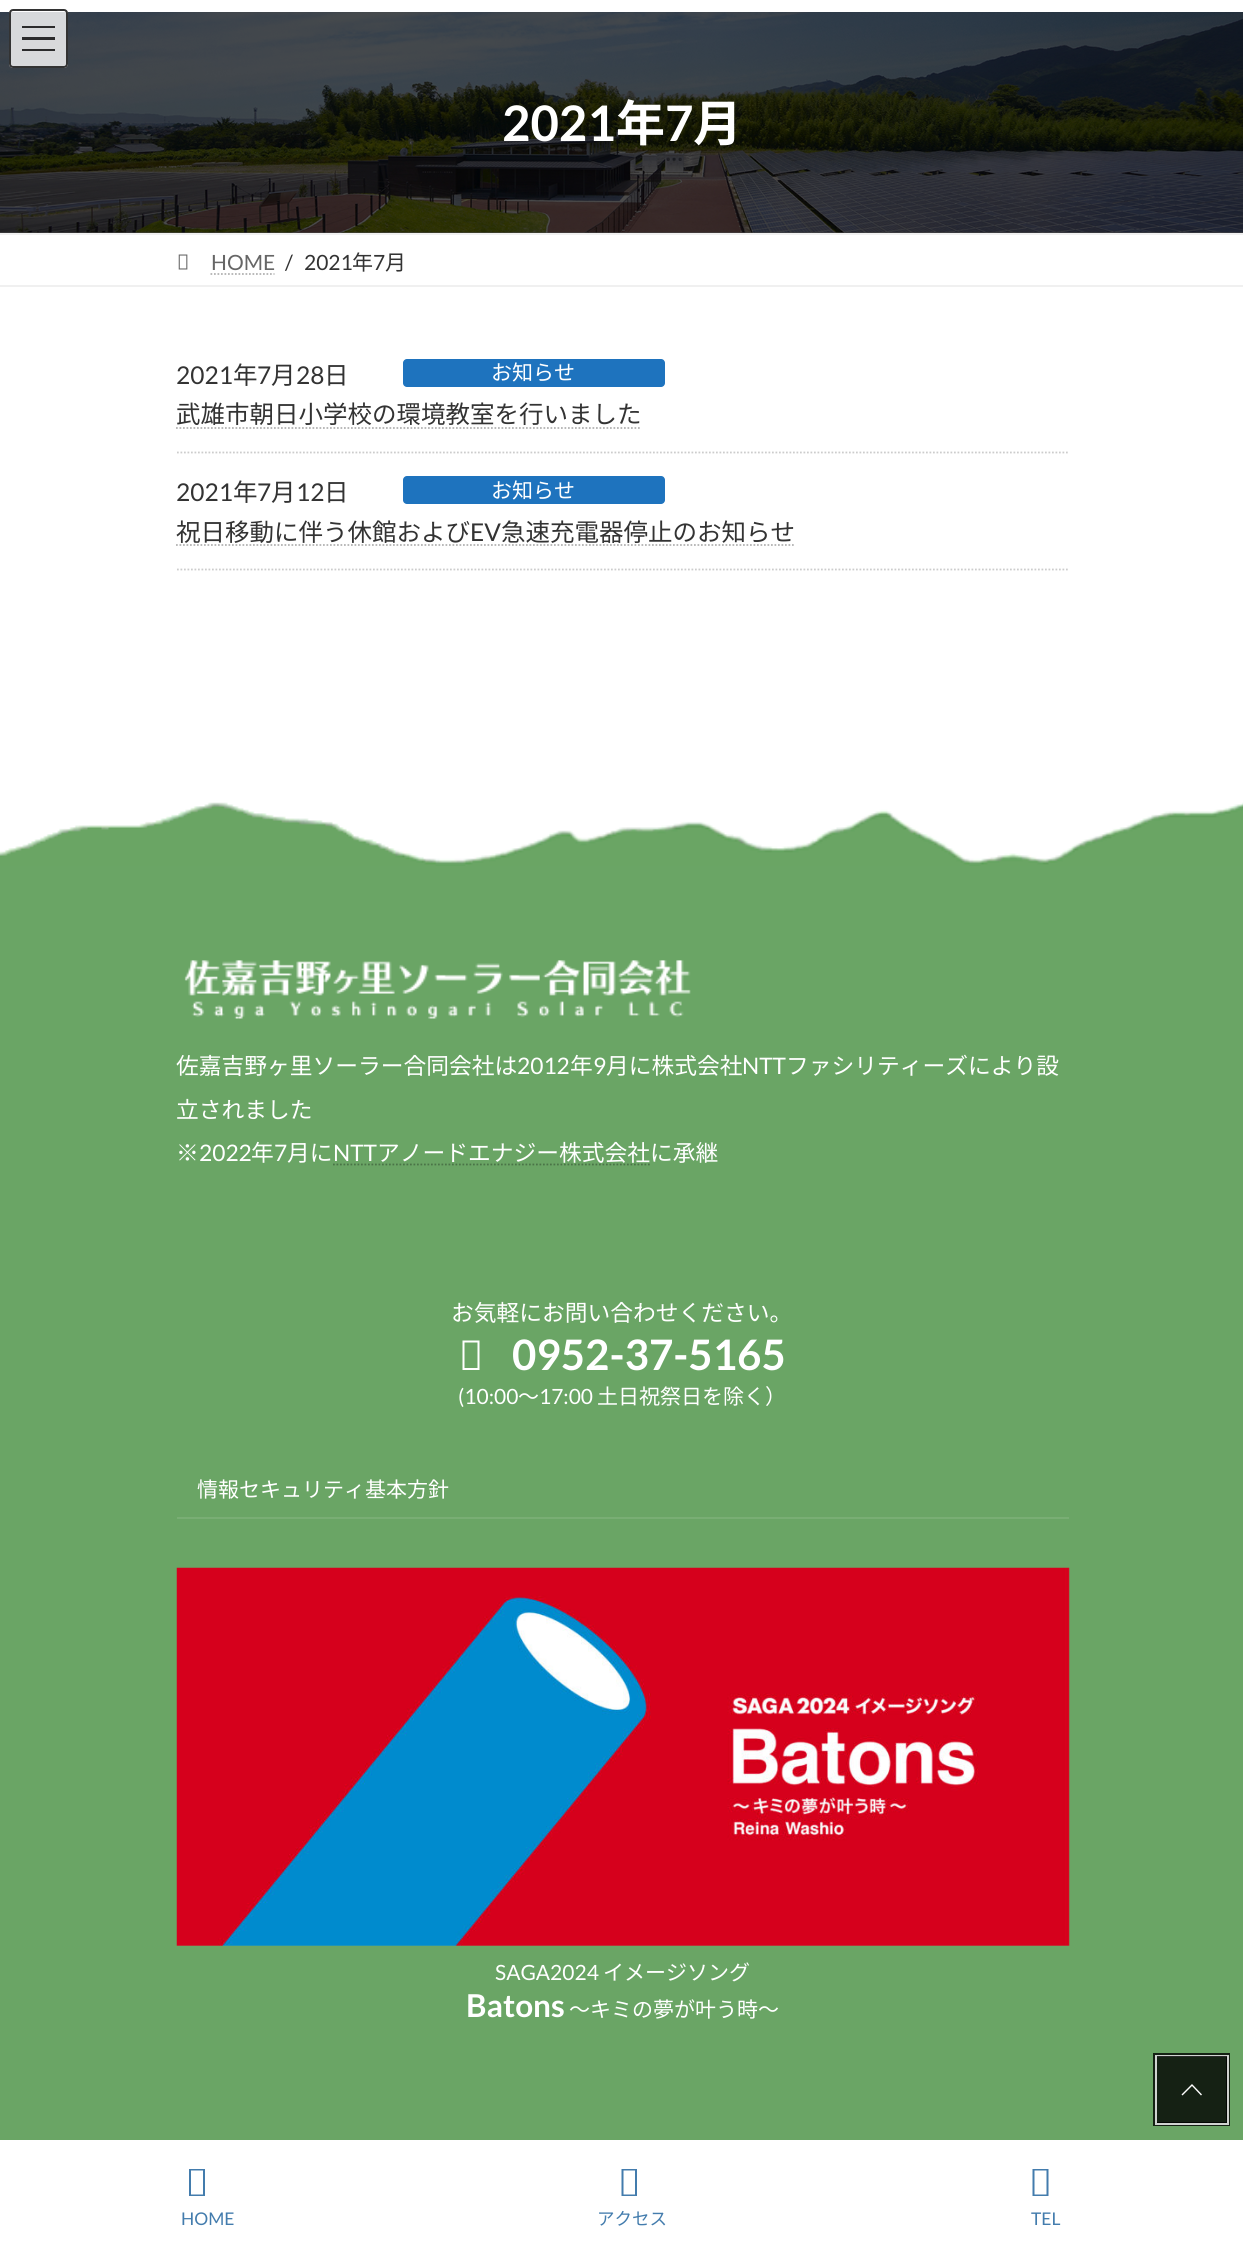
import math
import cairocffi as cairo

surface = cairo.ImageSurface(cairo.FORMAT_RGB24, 1243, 2248)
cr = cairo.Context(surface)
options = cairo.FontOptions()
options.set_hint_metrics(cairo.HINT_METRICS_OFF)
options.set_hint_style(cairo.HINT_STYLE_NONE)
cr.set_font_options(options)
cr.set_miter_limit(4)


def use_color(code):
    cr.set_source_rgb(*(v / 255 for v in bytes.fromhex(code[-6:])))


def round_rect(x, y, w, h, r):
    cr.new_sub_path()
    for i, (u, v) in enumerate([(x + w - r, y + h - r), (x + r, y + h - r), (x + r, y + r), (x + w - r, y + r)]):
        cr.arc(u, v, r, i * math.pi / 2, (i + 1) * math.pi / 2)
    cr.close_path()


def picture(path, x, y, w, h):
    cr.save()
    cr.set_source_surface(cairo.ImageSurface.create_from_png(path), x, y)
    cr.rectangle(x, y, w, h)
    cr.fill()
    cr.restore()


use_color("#ffffff")
cr.paint()
use_color("#4d4d4d")
cr.rectangle(0, 232, 1243, 1)
cr.fill()
picture("img1.png", 0, 12, 1243, 221)
cr.set_source_rgba(1, 1, 1, 0.8)
round_rect(9, 9, 59, 59, 4)
cr.fill()
use_color("#2b2b2c")
cr.rectangle(22, 26, 33, 2)
cr.fill()
cr.rectangle(22, 37, 33, 3)
cr.fill()
cr.rectangle(22, 49, 33, 2)
cr.fill()
round_rect(10, 10, 57, 57, 3)
use_color("#333333")
cr.stroke()
cr.select_font_face("Lato", cairo.FONT_SLANT_NORMAL, cairo.FONT_WEIGHT_BOLD)
cr.set_font_size(49)
use_color("#ffffff")
cr.move_to(502, 141)
cr.show_text("2021")
cr.select_font_face("Noto Sans JP", cairo.FONT_SLANT_NORMAL, cairo.FONT_WEIGHT_BOLD)
cr.move_to(616, 141)
cr.show_text("年")
cr.select_font_face("Lato", cairo.FONT_SLANT_NORMAL, cairo.FONT_WEIGHT_BOLD)
cr.move_to(665, 141)
cr.show_text("7")
cr.select_font_face("Noto Sans JP", cairo.FONT_SLANT_NORMAL, cairo.FONT_WEIGHT_BOLD)
cr.move_to(693, 141)
cr.show_text("月")
use_color("#f0f0f0")
cr.rectangle(0, 233, 1243, 2)
cr.fill()
cr.rectangle(0, 285, 1243, 2)
cr.fill()
picture("img2.png", 178, 254, 10, 16)
cr.select_font_face("Lato")
cr.set_font_size(21)
use_color("#666666")
cr.move_to(211, 270)
cr.show_text("HOME")
cr.new_path()
cr.move_to(210.5, 274)
cr.line_to(274.5, 274)
use_color("#b3b3b3")
cr.set_line_width(1.8)
cr.set_dash([1.75, 1.75])
cr.stroke()
use_color("#333333")
cr.move_to(285, 270)
cr.show_text("/")
cr.move_to(304, 270)
cr.show_text("2021")
cr.select_font_face("Noto Sans JP")
cr.move_to(352, 270)
cr.show_text("年")
cr.select_font_face("Lato")
cr.move_to(373, 270)
cr.show_text("7")
cr.select_font_face("Noto Sans JP")
cr.move_to(385, 270)
cr.show_text("月")
cr.new_path()
cr.move_to(177, 452.5)
cr.line_to(1069, 452.5)
use_color("#cccccc")
cr.stroke()
cr.select_font_face("Lato")
cr.set_font_size(24.5)
use_color("#333333")
cr.move_to(176, 384)
cr.show_text("2021")
cr.select_font_face("Noto Sans JP")
cr.move_to(233, 384)
cr.show_text("年")
cr.select_font_face("Lato")
cr.move_to(257, 384)
cr.show_text("7")
cr.select_font_face("Noto Sans JP")
cr.move_to(271, 384)
cr.show_text("月")
cr.select_font_face("Lato")
cr.move_to(296, 384)
cr.show_text("28")
cr.select_font_face("Noto Sans JP")
cr.move_to(324, 384)
cr.show_text("日")
use_color("#1e73be")
round_rect(403, 359, 262, 28, 4)
cr.fill()
cr.set_font_size(21)
use_color("#ffffff")
cr.move_to(491, 380)
cr.show_text("お知らせ")
cr.set_font_size(24.5)
use_color("#333333")
cr.move_to(176, 423)
cr.show_text("武雄市朝日小学校の環境教室を行いました")
cr.new_path()
cr.move_to(176, 428)
cr.line_to(641.5, 428)
use_color("#b3b3b3")
cr.stroke()
cr.new_path()
cr.move_to(177, 569.5)
cr.line_to(1069, 569.5)
use_color("#cccccc")
cr.stroke()
cr.select_font_face("Lato")
use_color("#333333")
cr.move_to(176, 501)
cr.show_text("2021")
cr.select_font_face("Noto Sans JP")
cr.move_to(233, 501)
cr.show_text("年")
cr.select_font_face("Lato")
cr.move_to(257, 501)
cr.show_text("7")
cr.select_font_face("Noto Sans JP")
cr.move_to(271, 501)
cr.show_text("月")
cr.select_font_face("Lato")
cr.move_to(296, 501)
cr.show_text("12")
cr.select_font_face("Noto Sans JP")
cr.move_to(324, 501)
cr.show_text("日")
use_color("#1e73be")
round_rect(403, 476, 262, 28, 4)
cr.fill()
cr.set_font_size(21)
use_color("#ffffff")
cr.move_to(491, 498)
cr.show_text("お知らせ")
cr.set_font_size(24.5)
use_color("#333333")
cr.move_to(176, 541)
cr.show_text("祝日移動に伴う休館および")
cr.new_path()
cr.move_to(176, 545)
cr.line_to(795, 545)
use_color("#b3b3b3")
cr.stroke()
cr.select_font_face("Lato")
use_color("#333333")
cr.move_to(470, 541)
cr.show_text("EV")
cr.select_font_face("Noto Sans JP")
cr.move_to(501, 541)
cr.show_text("急速充電器停止のお知らせ")
use_color("#6aa565")
cr.rectangle(0, 866, 1243, 1274)
cr.fill()
picture("img3.png", 0, 777, 1243, 89)
picture("img4.png", 184, 960, 507, 59)
cr.set_font_size(22.75)
use_color("#ffffff")
cr.move_to(176, 1074)
cr.show_text("佐嘉吉野ヶ里ソーラー合同会社は")
cr.select_font_face("Lato")
cr.move_to(517, 1074)
cr.show_text("2012")
cr.select_font_face("Noto Sans JP")
cr.move_to(570, 1074)
cr.show_text("年")
cr.select_font_face("Lato")
cr.move_to(593, 1074)
cr.show_text("9")
cr.select_font_face("Noto Sans JP")
cr.move_to(606, 1074)
cr.show_text("月に株式会社")
cr.select_font_face("Lato")
cr.move_to(742, 1074)
cr.show_text("NTT")
cr.select_font_face("Noto Sans JP")
cr.move_to(786, 1074)
cr.show_text("ファシリティーズにより設")
cr.move_to(176, 1118)
cr.show_text("立されました")
cr.move_to(176, 1161)
cr.show_text("※")
cr.select_font_face("Lato")
cr.move_to(199, 1161)
cr.show_text("2022")
cr.select_font_face("Noto Sans JP")
cr.move_to(251, 1161)
cr.show_text("年")
cr.select_font_face("Lato")
cr.move_to(274, 1161)
cr.show_text("7")
cr.select_font_face("Noto Sans JP")
cr.move_to(287, 1161)
cr.show_text("月に")
cr.select_font_face("Lato")
cr.move_to(333, 1161)
cr.show_text("NTT")
cr.new_path()
cr.move_to(333, 1164.5)
cr.line_to(650, 1164.5)
use_color("#4a7447")
cr.stroke()
cr.select_font_face("Noto Sans JP")
use_color("#ffffff")
cr.move_to(377, 1161)
cr.show_text("アノードエナジー株式会社に承継")
cr.move_to(451, 1321)
cr.show_text("お気軽にお問い合わせください。")
cr.new_path()
cr.move_to(462.5, 1370)
cr.line_to(462.5, 1340.5)
cr.line_to(479.5, 1340.5)
cr.line_to(479.5, 1370)
cr.close_path()
cr.move_to(464.5, 1368)
cr.line_to(477.5, 1368)
cr.line_to(477.5, 1342.5)
cr.line_to(464.5, 1342.5)
cr.close_path()
cr.fill()
cr.select_font_face("Lato", cairo.FONT_SLANT_NORMAL, cairo.FONT_WEIGHT_BOLD)
cr.set_font_size(42)
cr.move_to(512, 1370)
cr.show_text("0952-37-5165")
cr.select_font_face("Lato")
cr.set_font_size(21)
cr.move_to(458, 1404)
cr.show_text("(10:00")
cr.select_font_face("Noto Sans JP")
cr.move_to(518, 1404)
cr.show_text("～")
cr.select_font_face("Lato")
cr.move_to(539, 1404)
cr.show_text("17:00")
cr.select_font_face("Noto Sans JP")
cr.move_to(597, 1404)
cr.show_text("土日祝祭日を除く）")
use_color("#79ae74")
cr.rectangle(177, 1517, 892, 2)
cr.fill()
use_color("#ffffff")
cr.move_to(197, 1497)
cr.show_text("情報セキュリティ基本方針")
picture("img5.png", 176, 1567, 894, 379)
cr.select_font_face("Lato")
cr.move_to(495, 1980)
cr.show_text("SAGA2024")
cr.select_font_face("Noto Sans JP")
cr.move_to(603, 1980)
cr.show_text("イメージソング")
cr.select_font_face("Lato", cairo.FONT_SLANT_NORMAL, cairo.FONT_WEIGHT_BOLD)
cr.set_font_size(31.5)
cr.move_to(466, 2017)
cr.show_text("Batons")
cr.select_font_face("Noto Sans JP")
cr.set_font_size(21)
cr.move_to(569, 2017)
cr.show_text("〜キミの夢が叶う時〜")
cr.rectangle(1155, 2055, 73, 69)
use_color("#152114")
cr.set_line_width(4)
cr.set_dash([])
cr.stroke()
cr.rectangle(1156, 2056, 72, 68)
use_color("#d0d3d0")
cr.set_line_width(2)
cr.stroke()
cr.set_source_rgba(0, 0, 0, 0.8)
cr.rectangle(1157, 2056, 70, 67)
cr.fill()
use_color("#ffffff")
cr.new_path()
cr.move_to(1202, 2094.5)
cr.line_to(1201, 2095.5)
cr.line_to(1192, 2086)
cr.line_to(1182.5, 2095.5)
cr.line_to(1181.5, 2094.5)
cr.line_to(1192, 2084)
cr.close_path()
cr.fill()
use_color("#437cad")
cr.new_path()
cr.move_to(189, 2196)
cr.line_to(189, 2169)
cr.line_to(205, 2169)
cr.line_to(205, 2196)
cr.close_path()
cr.move_to(191, 2194.5)
cr.line_to(203, 2194.5)
cr.line_to(203, 2170.5)
cr.line_to(191, 2170.5)
cr.close_path()
cr.fill()
cr.select_font_face("Lato")
cr.set_font_size(17.5)
cr.move_to(181, 2225)
cr.show_text("HOME")
cr.new_path()
cr.move_to(621.5, 2196)
cr.line_to(621.5, 2169)
cr.line_to(637, 2169)
cr.line_to(637, 2196)
cr.close_path()
cr.move_to(623.5, 2194.5)
cr.line_to(635, 2194.5)
cr.line_to(635, 2170.5)
cr.line_to(623.5, 2170.5)
cr.close_path()
cr.fill()
cr.select_font_face("Noto Sans JP")
cr.move_to(597, 2225)
cr.show_text("アクセス")
cr.new_path()
cr.move_to(1032.5, 2196)
cr.line_to(1032.5, 2169)
cr.line_to(1048.5, 2169)
cr.line_to(1048.5, 2196)
cr.close_path()
cr.move_to(1034.5, 2194.5)
cr.line_to(1046.5, 2194.5)
cr.line_to(1046.5, 2170.5)
cr.line_to(1034.5, 2170.5)
cr.close_path()
cr.fill()
cr.select_font_face("Lato")
cr.move_to(1031, 2225)
cr.show_text("TEL")
surface.write_to_png("result.png")
